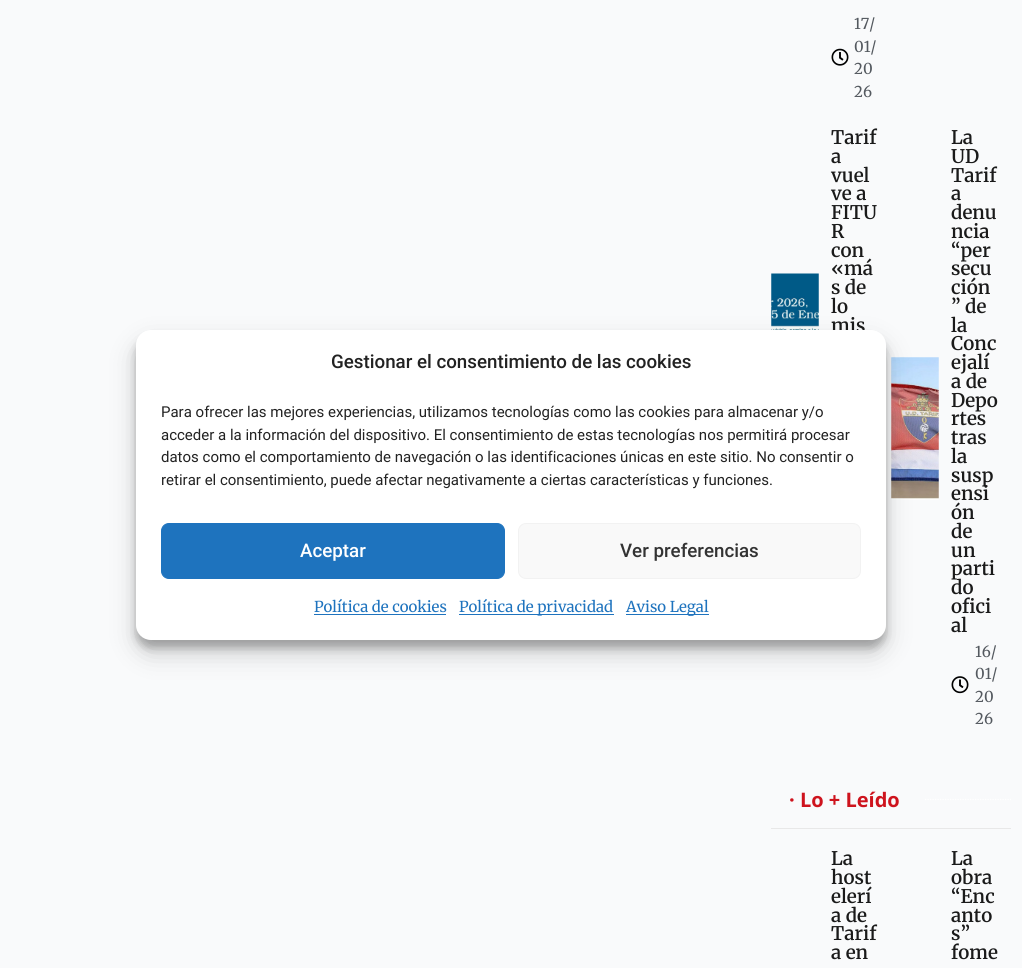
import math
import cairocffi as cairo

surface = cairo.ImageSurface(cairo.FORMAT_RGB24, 1022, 968)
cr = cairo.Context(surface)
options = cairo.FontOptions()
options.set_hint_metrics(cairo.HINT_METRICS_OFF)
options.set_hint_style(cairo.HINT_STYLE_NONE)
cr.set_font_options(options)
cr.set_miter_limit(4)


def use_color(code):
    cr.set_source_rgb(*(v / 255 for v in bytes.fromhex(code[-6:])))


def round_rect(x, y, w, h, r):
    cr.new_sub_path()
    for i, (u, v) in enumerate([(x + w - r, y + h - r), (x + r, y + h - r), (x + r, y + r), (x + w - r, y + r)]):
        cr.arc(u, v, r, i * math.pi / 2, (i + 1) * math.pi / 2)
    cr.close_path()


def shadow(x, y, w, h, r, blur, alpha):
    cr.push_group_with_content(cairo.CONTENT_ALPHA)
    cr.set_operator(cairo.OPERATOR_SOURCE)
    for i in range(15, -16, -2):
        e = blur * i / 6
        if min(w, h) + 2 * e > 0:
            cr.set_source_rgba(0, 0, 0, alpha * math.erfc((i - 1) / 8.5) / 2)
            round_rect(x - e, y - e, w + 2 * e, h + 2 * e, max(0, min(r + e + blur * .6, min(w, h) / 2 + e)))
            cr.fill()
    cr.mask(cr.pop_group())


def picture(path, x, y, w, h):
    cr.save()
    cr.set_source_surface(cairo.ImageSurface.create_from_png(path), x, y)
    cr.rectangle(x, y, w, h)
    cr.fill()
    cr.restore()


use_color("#f9fafb")
cr.paint()
picture("img2.png", 771, 273, 48, 57)
picture("img3.png", 891, 357, 48, 143)
use_color("#000000")
shadow(136, 338, 750, 310, 15, 4, 0.23)
shadow(136, 343, 750, 310, 15, 12.5, 0.19)
cr.select_font_face("Merriweather SemiBold")
cr.set_font_size(18.75)
use_color("#1a1a1a")
cr.move_to(831, 332)
cr.show_text("mis")
use_color("#ffffff")
round_rect(136, 330, 750, 310, 15)
cr.fill()
cr.select_font_face("Roboto Medium")
use_color("#222222")
cr.move_to(331, 368)
cr.show_text("Gestionar el consentimiento de las cookies")
cr.select_font_face("Roboto")
cr.set_font_size(15)
cr.move_to(161, 417)
cr.show_text("Para ofrecer las mejores experiencias, utilizamos tecnologías como las cookies para almacenar y/o")
cr.move_to(161, 440)
cr.show_text("acceder a la información del dispositivo. El consentimiento de estas tecnologías nos permitirá procesar")
cr.move_to(161, 462)
cr.show_text("datos como el comportamiento de navegación o las identificaciones únicas en este sitio. No consentir o")
cr.move_to(161, 485)
cr.show_text("retirar el consentimiento, puede afectar negativamente a ciertas características y funciones.")
use_color("#1e73be")
round_rect(161.5, 523.5, 343, 55, 7.5)
cr.fill_preserve()
cr.set_line_width(1)
cr.stroke()
cr.select_font_face("Roboto Medium")
cr.set_font_size(18.75)
use_color("#ffffff")
cr.move_to(300, 557)
cr.show_text("Aceptar")
use_color("#f9f9f9")
round_rect(518.5, 523.5, 342, 55, 7.5)
cr.fill_preserve()
use_color("#f2f2f2")
cr.stroke()
use_color("#333333")
cr.move_to(620, 557)
cr.show_text("Ver preferencias")
cr.select_font_face("Merriweather")
cr.set_font_size(15)
use_color("#1e73be")
cr.move_to(314, 612)
cr.show_text("Política de cookies")
cr.rectangle(314, 614, 132, 1)
cr.fill()
cr.rectangle(459, 614, 155, 1)
cr.fill()
cr.move_to(459, 612)
cr.show_text("Política de privacidad")
cr.rectangle(626, 614, 83, 1)
cr.fill()
cr.move_to(626, 612)
cr.show_text("Aviso Legal")
picture("img1.png", 831, 48, 18, 18)
use_color("#54595f")
cr.move_to(854, 29)
cr.show_text("17/")
cr.move_to(854, 52)
cr.show_text("01/")
cr.move_to(854, 74)
cr.show_text("20")
cr.move_to(854, 97)
cr.show_text("26")
cr.select_font_face("Merriweather SemiBold")
cr.set_font_size(18.75)
use_color("#1a1a1a")
cr.move_to(831, 144)
cr.show_text("Tarif")
cr.move_to(831, 163)
cr.show_text("a")
cr.move_to(831, 182)
cr.show_text("vuel")
cr.move_to(831, 200)
cr.show_text("ve a")
cr.move_to(831, 219)
cr.show_text("FITU")
cr.move_to(831, 238)
cr.show_text("R")
cr.move_to(831, 257)
cr.show_text("con")
cr.move_to(831, 275)
cr.show_text("«má")
cr.move_to(831, 294)
cr.show_text("s de")
cr.move_to(831, 313)
cr.show_text("lo")
cr.move_to(951, 144)
cr.show_text("La")
cr.move_to(951, 163)
cr.show_text("UD")
cr.move_to(951, 182)
cr.show_text("Tarif")
cr.move_to(951, 200)
cr.show_text("a")
cr.move_to(951, 219)
cr.show_text("denu")
cr.move_to(951, 238)
cr.show_text("ncia")
cr.move_to(951, 257)
cr.show_text("“per")
cr.move_to(951, 275)
cr.show_text("secu")
cr.move_to(951, 294)
cr.show_text("ción")
cr.move_to(951, 313)
cr.show_text("” de")
cr.move_to(951, 332)
cr.show_text("la")
cr.move_to(951, 350)
cr.show_text("Conc")
cr.move_to(951, 369)
cr.show_text("ejalí")
cr.move_to(951, 388)
cr.show_text("a de")
cr.move_to(951, 407)
cr.show_text("Depo")
cr.move_to(951, 425)
cr.show_text("rtes")
cr.move_to(951, 444)
cr.show_text("tras")
cr.move_to(951, 463)
cr.show_text("la")
cr.move_to(951, 482)
cr.show_text("susp")
cr.move_to(951, 500)
cr.show_text("ensi")
cr.move_to(951, 519)
cr.show_text("ón")
cr.move_to(951, 538)
cr.show_text("de")
cr.move_to(951, 557)
cr.show_text("un")
cr.move_to(951, 575)
cr.show_text("parti")
cr.move_to(951, 594)
cr.show_text("do")
cr.move_to(951, 613)
cr.show_text("ofici")
cr.move_to(951, 632)
cr.show_text("al")
picture("img4.png", 951, 676, 18, 18)
cr.select_font_face("Merriweather")
cr.set_font_size(15)
use_color("#54595f")
cr.move_to(975, 657)
cr.show_text("16/")
cr.move_to(975, 679)
cr.show_text("01/")
cr.move_to(975, 702)
cr.show_text("20")
cr.move_to(975, 724)
cr.show_text("26")
use_color("#e8e8e8")
cr.rectangle(771, 828, 240, 1)
cr.fill()
cr.select_font_face("Open Sans", cairo.FONT_SLANT_NORMAL, cairo.FONT_WEIGHT_BOLD)
cr.set_font_size(20)
use_color("#ce131d")
cr.move_to(789, 807)
cr.show_text("· Lo + Leído")
cr.new_path()
cr.move_to(925, 799.5)
cr.line_to(1011, 799.5)
use_color("#ffffff")
cr.set_line_width(1.2)
cr.set_dash([1.25, 1.25])
cr.stroke()
cr.select_font_face("Merriweather SemiBold")
cr.set_font_size(18.75)
use_color("#1a1a1a")
cr.move_to(831, 865)
cr.show_text("La")
cr.move_to(831, 884)
cr.show_text("host")
cr.move_to(831, 903)
cr.show_text("elerí")
cr.move_to(831, 922)
cr.show_text("a de")
cr.move_to(831, 940)
cr.show_text("Tarif")
cr.move_to(831, 959)
cr.show_text("a en")
cr.move_to(951, 865)
cr.show_text("La")
cr.move_to(951, 884)
cr.show_text("obra")
cr.move_to(951, 903)
cr.show_text("“Enc")
cr.move_to(951, 922)
cr.show_text("anto")
cr.move_to(951, 940)
cr.show_text("s”")
cr.move_to(951, 959)
cr.show_text("fome")
surface.write_to_png("result.png")
